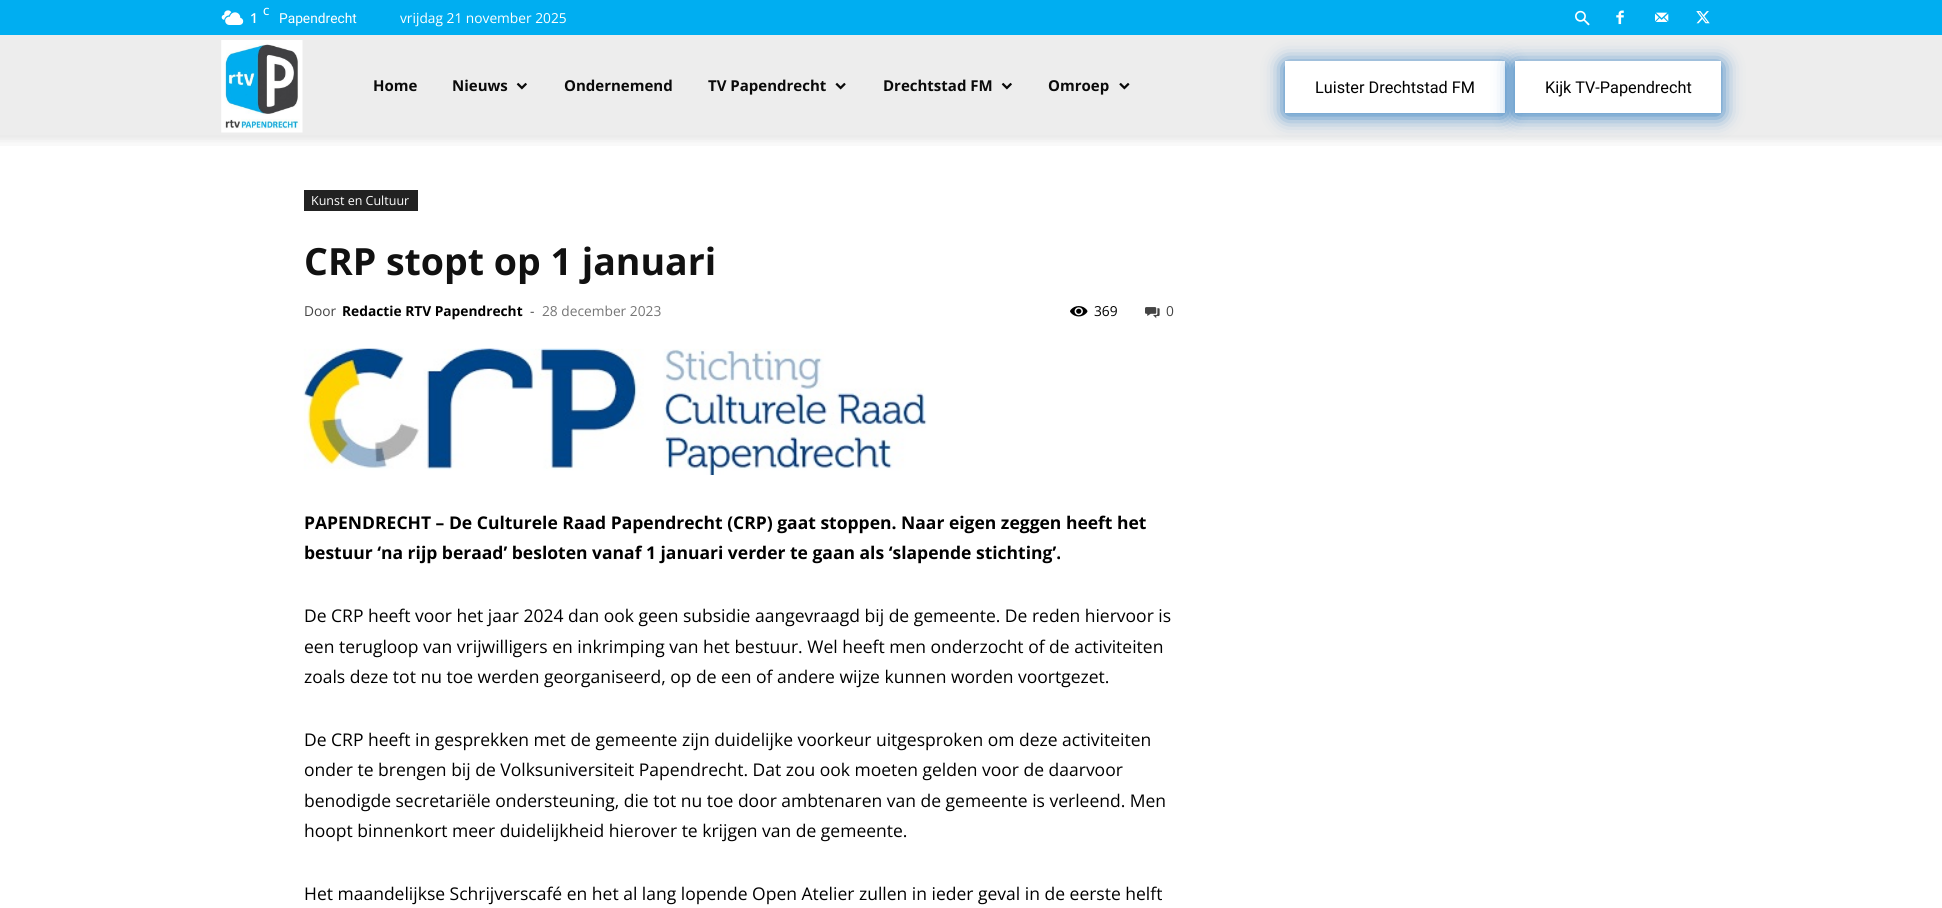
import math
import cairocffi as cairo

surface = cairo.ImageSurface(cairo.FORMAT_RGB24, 1942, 908)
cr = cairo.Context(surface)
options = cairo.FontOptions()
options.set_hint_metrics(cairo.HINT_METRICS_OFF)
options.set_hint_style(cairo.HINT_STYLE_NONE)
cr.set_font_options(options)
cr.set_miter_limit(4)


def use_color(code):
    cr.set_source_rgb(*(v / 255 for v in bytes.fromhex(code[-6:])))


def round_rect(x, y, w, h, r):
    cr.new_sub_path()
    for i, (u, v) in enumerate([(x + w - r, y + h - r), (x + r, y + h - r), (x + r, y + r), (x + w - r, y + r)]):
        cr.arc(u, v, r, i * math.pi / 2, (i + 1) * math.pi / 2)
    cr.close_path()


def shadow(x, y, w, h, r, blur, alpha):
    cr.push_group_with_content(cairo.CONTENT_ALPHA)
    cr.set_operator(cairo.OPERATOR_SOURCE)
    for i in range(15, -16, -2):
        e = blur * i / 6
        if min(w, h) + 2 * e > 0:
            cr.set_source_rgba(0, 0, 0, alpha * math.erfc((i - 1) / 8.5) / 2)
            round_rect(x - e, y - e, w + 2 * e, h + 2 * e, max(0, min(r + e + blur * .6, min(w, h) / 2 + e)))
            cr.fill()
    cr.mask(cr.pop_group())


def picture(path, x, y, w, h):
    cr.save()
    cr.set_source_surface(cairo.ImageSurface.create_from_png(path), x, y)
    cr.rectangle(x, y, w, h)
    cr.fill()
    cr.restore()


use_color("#ffffff")
cr.paint()
use_color("#ededed")
cr.rectangle(0, 35, 1942, 100)
cr.fill()
picture("img10.png", 0, 135, 1942, 11)
use_color("#1e73be")
shadow(1285, 64, 220, 51, 0, 10, 1)
use_color("#ffffff")
cr.rectangle(1285, 61, 220, 52)
cr.fill()
use_color("#1e73be")
shadow(1515, 64, 206, 51, 0, 10, 1)
use_color("#00aef1")
cr.rectangle(0, 0, 1942, 35)
cr.fill()
picture("img1.png", 221, 10, 23, 15)
cr.select_font_face("Open Sans SemiBold")
cr.set_font_size(10)
use_color("#ffffff")
cr.move_to(263, 15)
cr.show_text("C")
cr.set_font_size(13.75)
cr.move_to(250, 23)
cr.show_text("1")
cr.select_font_face("Roboto")
cr.move_to(279, 23)
cr.show_text("Papendrecht")
cr.select_font_face("Open Sans")
cr.move_to(400, 23)
cr.show_text("vrijdag 21 november 2025")
picture("img2.png", 1575, 10, 15, 16)
picture("img3.png", 1616, 10, 8, 15)
picture("img4.png", 1655, 12, 14, 10)
picture("img5.png", 1696, 11, 14, 13)
picture("img6.png", 221, 40, 82, 93)
cr.select_font_face("Open Sans", cairo.FONT_SLANT_NORMAL, cairo.FONT_WEIGHT_BOLD)
cr.set_font_size(15)
use_color("#0a0a0a")
cr.move_to(373, 91)
cr.show_text("Home")
cr.move_to(452, 91)
cr.show_text("Nieuws")
picture("img7.png", 516, 82, 11, 8)
cr.move_to(564, 91)
cr.show_text("Ondernemend")
cr.move_to(708, 91)
cr.show_text("TV Papendrecht")
picture("img8.png", 835, 82, 11, 8)
cr.move_to(883, 91)
cr.show_text("Drechtstad FM")
picture("img7.png", 1001, 82, 11, 8)
cr.move_to(1048, 91)
cr.show_text("Omroep")
picture("img9.png", 1119, 82, 11, 8)
cr.select_font_face("Roboto")
cr.set_font_size(16.25)
use_color("#000000")
cr.move_to(1315, 93)
cr.show_text("Luister Drechtstad FM")
use_color("#ffffff")
cr.rectangle(1515, 61, 206, 52)
cr.fill()
use_color("#000000")
cr.move_to(1545, 93)
cr.show_text("Kijk TV-Papendrecht")
use_color("#222222")
cr.rectangle(304, 190, 114, 21)
cr.fill()
cr.select_font_face("Open Sans")
cr.set_font_size(12.5)
use_color("#ffffff")
cr.move_to(311, 205)
cr.show_text("Kunst en Cultuur")
cr.select_font_face("Open Sans", cairo.FONT_SLANT_NORMAL, cairo.FONT_WEIGHT_BOLD)
cr.set_font_size(37.5)
use_color("#111111")
cr.move_to(304, 275)
cr.show_text("CRP stopt op 1 januari")
cr.select_font_face("Open Sans")
cr.set_font_size(13.75)
use_color("#444444")
cr.move_to(304, 316)
cr.show_text("Door")
cr.select_font_face("Open Sans", cairo.FONT_SLANT_NORMAL, cairo.FONT_WEIGHT_BOLD)
use_color("#000000")
cr.move_to(342, 316)
cr.show_text("Redactie RTV Papendrecht")
cr.select_font_face("Open Sans")
use_color("#444444")
cr.move_to(530, 316)
cr.show_text("-")
use_color("#767676")
cr.move_to(542, 316)
cr.show_text("28 december 2023")
picture("img11.png", 1070, 306, 18, 11)
use_color("#000000")
cr.move_to(1094, 316)
cr.show_text("369")
picture("img12.png", 1145, 307, 15, 12)
use_color("#444444")
cr.move_to(1166, 316)
cr.show_text("0")
picture("img13.png", 303, 348, 624, 127)
cr.select_font_face("Open Sans", cairo.FONT_SLANT_NORMAL, cairo.FONT_WEIGHT_BOLD)
cr.set_font_size(17.5)
use_color("#000000")
cr.move_to(304, 529)
cr.show_text("PAPENDRECHT – De Culturele Raad Papendrecht (CRP) gaat stoppen. Naar eigen zeggen heeft het")
cr.move_to(304, 559)
cr.show_text("bestuur ‘na rijp beraad’ besloten vanaf 1 januari verder te gaan als ‘slapende stichting’.")
cr.select_font_face("Open Sans")
cr.move_to(304, 622)
cr.show_text("De CRP heeft voor het jaar 2024 dan ook geen subsidie aangevraagd bij de gemeente. De reden hiervoor is")
cr.move_to(304, 653)
cr.show_text("een terugloop van vrijwilligers en inkrimping van het bestuur. Wel heeft men onderzocht of de activiteiten")
cr.move_to(304, 683)
cr.show_text("zoals deze tot nu toe werden georganiseerd, op de een of andere wijze kunnen worden voortgezet.")
cr.move_to(304, 746)
cr.show_text("De CRP heeft in gesprekken met de gemeente zijn duidelijke voorkeur uitgesproken om deze activiteiten")
cr.move_to(304, 776)
cr.show_text("onder te brengen bij de Volksuniversiteit Papendrecht. Dat zou ook moeten gelden voor de daarvoor")
cr.move_to(304, 807)
cr.show_text("benodigde secretariële ondersteuning, die tot nu toe door ambtenaren van de gemeente is verleend. Men")
cr.move_to(304, 837)
cr.show_text("hoopt binnenkort meer duidelijkheid hierover te krijgen van de gemeente.")
cr.move_to(304, 900)
cr.show_text("Het maandelijkse Schrijverscafé en het al lang lopende Open Atelier zullen in ieder geval in de eerste helft")
surface.write_to_png("result.png")
